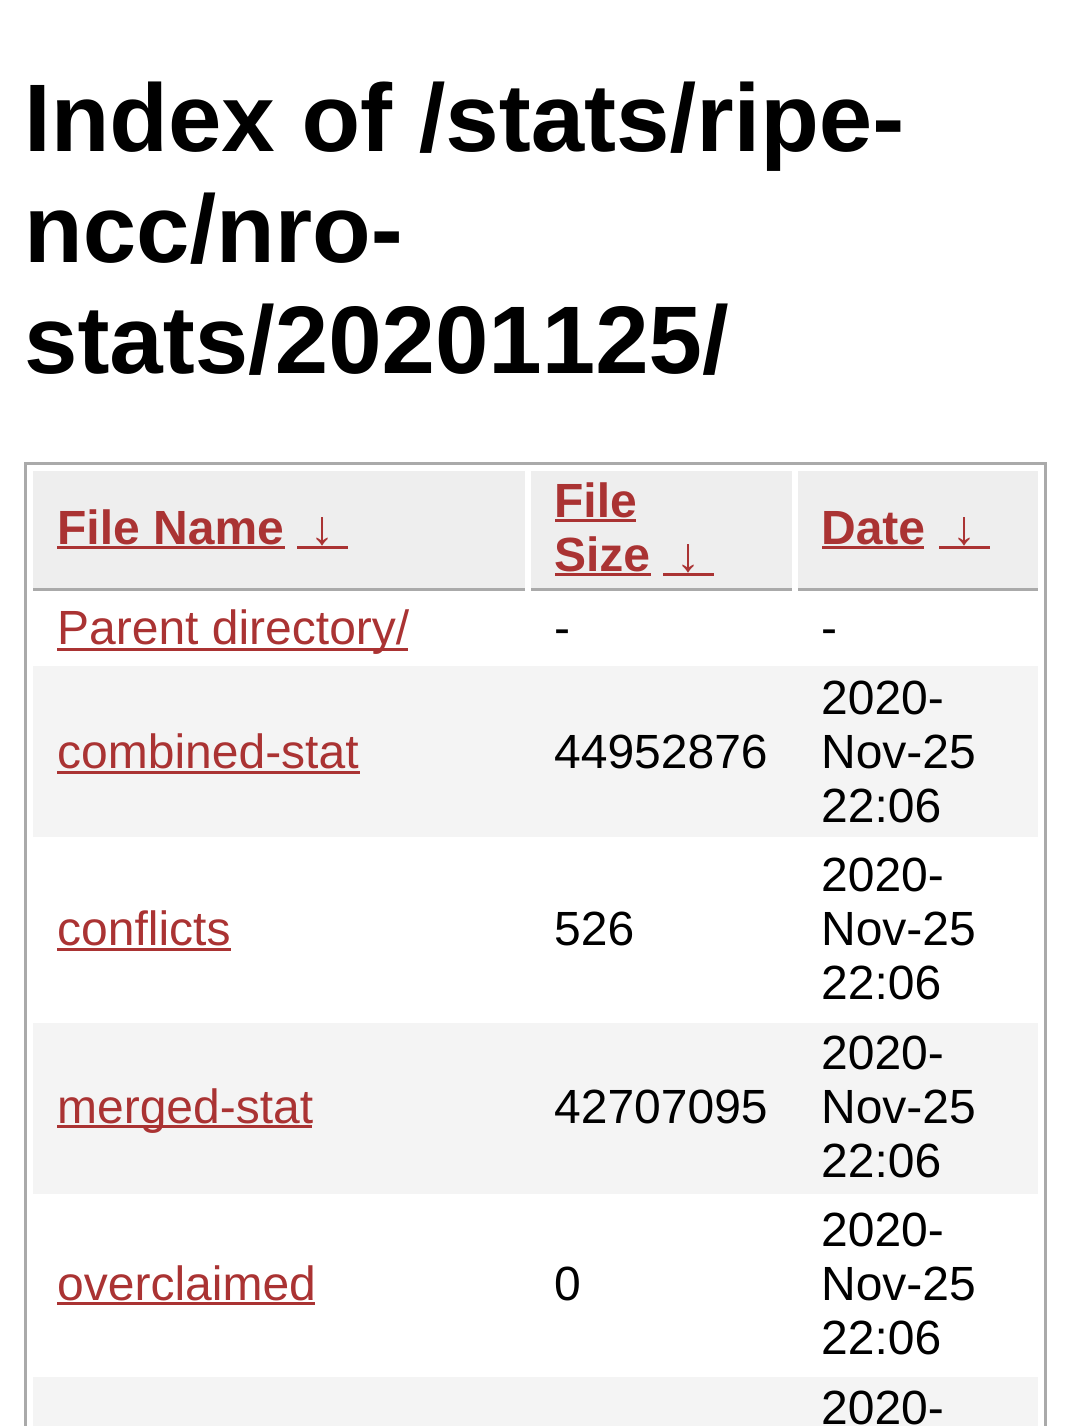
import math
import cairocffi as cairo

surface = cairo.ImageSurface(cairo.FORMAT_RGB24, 1069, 1426)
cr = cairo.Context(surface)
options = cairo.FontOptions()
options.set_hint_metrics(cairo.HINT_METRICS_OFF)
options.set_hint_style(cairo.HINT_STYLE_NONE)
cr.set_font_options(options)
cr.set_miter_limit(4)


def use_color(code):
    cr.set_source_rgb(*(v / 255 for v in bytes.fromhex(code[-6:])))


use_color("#ffffff")
cr.paint()
cr.select_font_face("Liberation Sans", cairo.FONT_SLANT_NORMAL, cairo.FONT_WEIGHT_BOLD)
cr.set_font_size(96)
use_color("#000000")
cr.move_to(24, 151)
cr.show_text("Index of /stats/ripe-")
cr.move_to(24, 262)
cr.show_text("ncc/nro-")
cr.move_to(24, 373)
cr.show_text("stats/20201125/")
cr.rectangle(25.5, 463.5, 1020, 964)
use_color("#aaaaaa")
cr.set_line_width(3)
cr.stroke()
use_color("#eeeeee")
cr.rectangle(33, 471, 492, 117)
cr.fill()
use_color("#aaaaaa")
cr.rectangle(33, 588, 492, 3)
cr.fill()
cr.set_font_size(48)
use_color("#aa3333")
cr.move_to(57, 544)
cr.show_text("File Name")
cr.rectangle(57, 546, 228, 3)
cr.fill()
cr.move_to(310, 544)
cr.show_text("↓")
cr.rectangle(297, 546, 51, 3)
cr.fill()
use_color("#eeeeee")
cr.rectangle(531, 471, 261, 117)
cr.fill()
use_color("#aaaaaa")
cr.rectangle(531, 588, 261, 3)
cr.fill()
use_color("#aa3333")
cr.move_to(554, 517)
cr.show_text("File")
cr.rectangle(555, 519, 81, 3)
cr.fill()
cr.move_to(554, 571)
cr.show_text("Size")
cr.rectangle(555, 573, 96, 3)
cr.fill()
cr.move_to(676, 571)
cr.show_text("↓")
cr.rectangle(663, 573, 51, 3)
cr.fill()
use_color("#eeeeee")
cr.rectangle(798, 471, 240, 117)
cr.fill()
use_color("#aaaaaa")
cr.rectangle(798, 588, 240, 3)
cr.fill()
use_color("#aa3333")
cr.move_to(821, 544)
cr.show_text("Date")
cr.rectangle(822, 546, 102, 3)
cr.fill()
cr.move_to(952, 544)
cr.show_text("↓")
cr.rectangle(939, 546, 51, 3)
cr.fill()
cr.rectangle(57, 648, 351, 3)
cr.fill()
cr.select_font_face("Liberation Sans")
cr.move_to(57, 644)
cr.show_text("Parent directory/")
use_color("#000000")
cr.move_to(554, 644)
cr.show_text("-")
cr.move_to(821, 644)
cr.show_text("-")
use_color("#f4f4f4")
cr.rectangle(33, 666, 1005, 171)
cr.fill()
use_color("#aa3333")
cr.move_to(57, 768)
cr.show_text("combined-stat")
cr.rectangle(57, 771, 303, 3)
cr.fill()
use_color("#000000")
cr.move_to(554, 768)
cr.show_text("44952876")
cr.move_to(821, 714)
cr.show_text("2020-")
cr.move_to(821, 768)
cr.show_text("Nov-25")
cr.move_to(821, 822)
cr.show_text("22:06")
use_color("#aa3333")
cr.move_to(57, 945)
cr.show_text("conflicts")
cr.rectangle(57, 948, 174, 3)
cr.fill()
use_color("#000000")
cr.move_to(554, 945)
cr.show_text("526")
cr.move_to(821, 891)
cr.show_text("2020-")
cr.move_to(821, 945)
cr.show_text("Nov-25")
cr.move_to(821, 999)
cr.show_text("22:06")
use_color("#f4f4f4")
cr.rectangle(33, 1023, 1005, 171)
cr.fill()
use_color("#aa3333")
cr.rectangle(57, 1125, 255, 3)
cr.fill()
cr.move_to(57, 1123)
cr.show_text("merged-stat")
use_color("#000000")
cr.move_to(554, 1123)
cr.show_text("42707095")
cr.move_to(821, 1069)
cr.show_text("2020-")
cr.move_to(821, 1123)
cr.show_text("Nov-25")
cr.move_to(821, 1177)
cr.show_text("22:06")
use_color("#aa3333")
cr.move_to(57, 1300)
cr.show_text("overclaimed")
cr.rectangle(57, 1302, 258, 3)
cr.fill()
use_color("#000000")
cr.move_to(554, 1300)
cr.show_text("0")
cr.move_to(821, 1246)
cr.show_text("2020-")
cr.move_to(821, 1300)
cr.show_text("Nov-25")
cr.move_to(821, 1354)
cr.show_text("22:06")
use_color("#f4f4f4")
cr.rectangle(33, 1377, 1005, 49)
cr.fill()
use_color("#000000")
cr.move_to(821, 1424)
cr.show_text("2020-")
surface.write_to_png("result.png")
